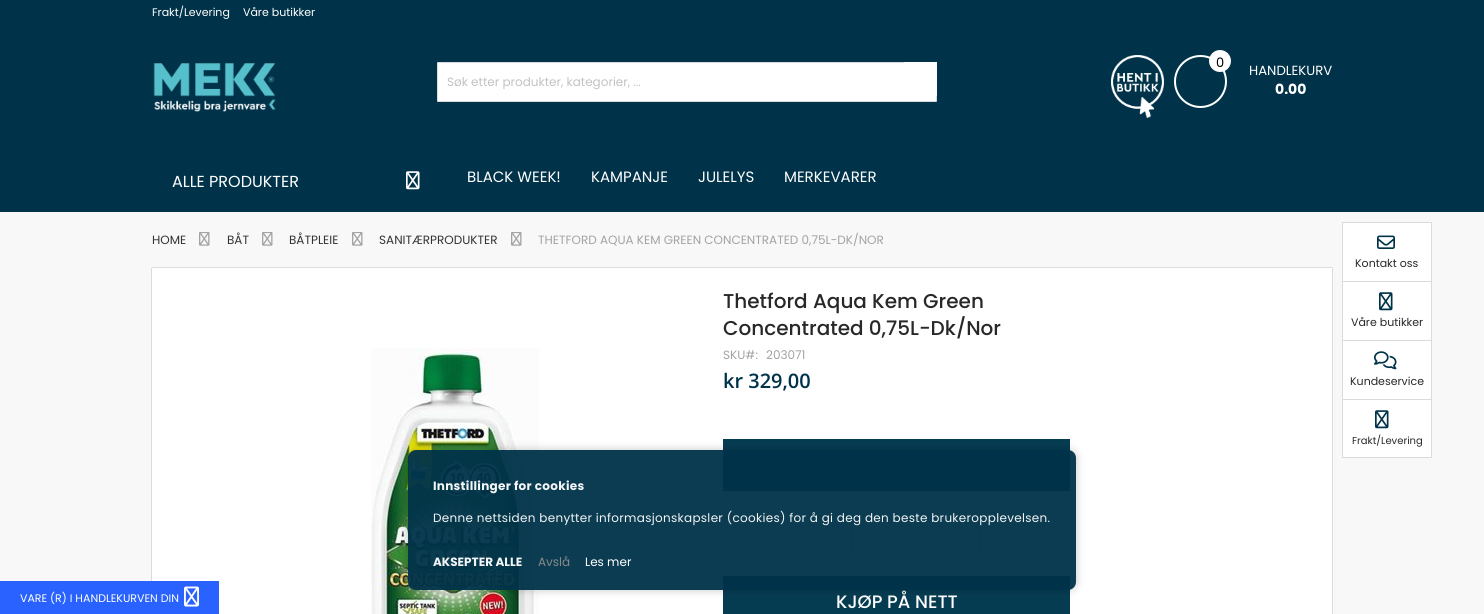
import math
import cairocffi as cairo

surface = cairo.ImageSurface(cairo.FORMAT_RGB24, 1484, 614)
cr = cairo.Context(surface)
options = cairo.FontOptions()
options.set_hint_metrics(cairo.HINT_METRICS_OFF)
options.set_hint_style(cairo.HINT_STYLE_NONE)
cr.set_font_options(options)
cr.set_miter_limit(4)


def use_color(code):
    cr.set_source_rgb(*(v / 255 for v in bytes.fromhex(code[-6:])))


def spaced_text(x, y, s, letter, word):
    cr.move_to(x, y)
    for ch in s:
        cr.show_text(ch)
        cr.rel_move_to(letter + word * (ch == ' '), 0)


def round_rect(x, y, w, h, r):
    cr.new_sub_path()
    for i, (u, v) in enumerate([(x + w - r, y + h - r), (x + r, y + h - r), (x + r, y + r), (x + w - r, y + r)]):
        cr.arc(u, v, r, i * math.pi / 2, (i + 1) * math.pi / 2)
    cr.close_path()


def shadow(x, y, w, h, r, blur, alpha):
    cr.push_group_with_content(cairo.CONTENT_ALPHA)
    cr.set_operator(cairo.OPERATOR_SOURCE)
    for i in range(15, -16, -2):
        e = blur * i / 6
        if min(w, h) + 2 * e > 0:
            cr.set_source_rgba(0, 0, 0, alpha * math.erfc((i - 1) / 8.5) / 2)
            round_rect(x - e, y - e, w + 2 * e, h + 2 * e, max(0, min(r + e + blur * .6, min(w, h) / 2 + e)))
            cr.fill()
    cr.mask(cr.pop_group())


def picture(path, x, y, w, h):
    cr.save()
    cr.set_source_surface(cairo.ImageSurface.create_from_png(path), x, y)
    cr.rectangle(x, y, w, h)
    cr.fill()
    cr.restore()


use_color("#f8f8f8")
cr.paint()
use_color("#003349")
cr.rectangle(0, 0, 1484, 212)
cr.fill()
cr.select_font_face("Poppins")
cr.set_font_size(11)
use_color("#ffffff")
cr.move_to(152, 16)
cr.show_text("Frakt/Levering")
cr.move_to(243, 16)
cr.show_text("Våre butikker")
picture("img1.png", 153, 63, 123, 49)
round_rect(437.5, 62.5, 499, 39, 0.5)
cr.fill_preserve()
use_color("#dbdbdb")
cr.set_line_width(1)
cr.stroke()
cr.set_font_size(12)
use_color("#c2c2c2")
cr.move_to(447, 86)
cr.show_text("Søk etter produkter, kategorier, ...")
cr.rectangle(904.5, 62.5, 32, 33)
use_color("#ffffff")
cr.stroke()
picture("img2.png", 1111, 55, 53, 63)
cr.arc(1200.5, 81.5, 25.5, 0, 2 * math.pi)
cr.set_line_width(2)
cr.stroke()
cr.arc(1220, 61, 11, 0, 2 * math.pi)
cr.fill()
cr.set_font_size(13)
use_color("#000000")
cr.move_to(1216, 67)
cr.show_text("0")
cr.set_font_size(13.25)
use_color("#ffffff")
cr.move_to(1249, 75)
cr.show_text("HANDLEKURV")
cr.select_font_face("Poppins", cairo.FONT_SLANT_NORMAL, cairo.FONT_WEIGHT_BOLD)
cr.set_font_size(14)
cr.move_to(1275, 94)
cr.show_text("0.00")
cr.select_font_face("Poppins")
cr.set_font_size(16)
cr.move_to(172, 187)
cr.show_text("ALLE PRODUKTER")
picture("img3.png", 406, 171, 14, 19)
cr.set_font_size(15)
cr.move_to(467, 182)
cr.show_text("BLACK WEEK!")
cr.move_to(591, 182)
cr.show_text("KAMPANJE")
cr.move_to(698, 182)
cr.show_text("JULELYS")
cr.move_to(784, 182)
cr.show_text("MERKEVARER")
cr.set_font_size(12)
use_color("#333333")
cr.move_to(152, 244)
cr.show_text("HOME")
picture("img4.png", 199, 232, 11, 14)
cr.move_to(227, 244)
cr.show_text("BÅT")
picture("img4.png", 262, 232, 11, 14)
cr.move_to(289, 244)
cr.show_text("BÅTPLEIE")
picture("img4.png", 352, 232, 11, 14)
cr.move_to(379, 244)
cr.show_text("SANITÆRPRODUKTER")
picture("img4.png", 511, 232, 11, 14)
use_color("#a3a3a3")
cr.move_to(538, 244)
cr.show_text("THETFORD AQUA KEM GREEN CONCENTRATED 0,75L-DK/NOR")
use_color("#8c8686")
shadow(152, 268, 1180, 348, 0, 0.5, 1)
use_color("#ffffff")
cr.rectangle(152, 268, 1180, 346)
cr.fill()
use_color("#2962ff")
cr.rectangle(0, 581, 219, 33)
cr.fill()
cr.set_font_size(11)
use_color("#ffffff")
cr.move_to(20, 602)
cr.show_text("VARE (R) I HANDLEKURVEN DIN")
picture("img5.png", 184, 586, 15, 21)
picture("img6.png", 371, 348, 168, 266)
cr.select_font_face("Poppins Medium")
cr.set_font_size(20)
use_color("#282828")
cr.move_to(723, 308)
cr.show_text("Thetford Aqua Kem Green")
cr.move_to(723, 335)
cr.show_text("Concentrated 0,75L-Dk/Nor")
cr.select_font_face("Poppins")
cr.set_font_size(12)
use_color("#a3a3a3")
cr.move_to(723, 359)
cr.show_text("SKU#:")
cr.move_to(766, 359)
cr.show_text("203071")
cr.select_font_face("Open Sans SemiBold")
cr.set_font_size(20)
use_color("#003349")
cr.move_to(723, 388)
cr.show_text("kr 329,00")
use_color("#063c52")
cr.rectangle(723, 439, 347, 52)
cr.fill()
use_color("#fbfbfb")
cr.rectangle(852.5, 516.5, 89, 39)
cr.fill_preserve()
use_color("#dbdbdb")
cr.set_line_width(1)
cr.stroke()
cr.rectangle(813.5, 516.5, 39, 39)
cr.stroke()
cr.rectangle(941.5, 516.5, 39, 39)
cr.stroke()
use_color("#063c52")
cr.rectangle(723, 576, 347, 38)
cr.fill()
cr.select_font_face("Poppins Medium")
cr.set_font_size(18)
use_color("#ffffff")
cr.move_to(836, 608)
cr.show_text("KJØP PÅ NETT")
cr.rectangle(1342.5, 222.5, 89, 235)
cr.fill_preserve()
use_color("#dbdbdb")
cr.stroke()
cr.rectangle(1343, 281, 88, 1)
cr.fill()
picture("img7.png", 1377, 235, 18, 14)
cr.select_font_face("Poppins")
cr.set_font_size(11)
use_color("#282828")
cr.move_to(1355, 267)
cr.show_text("Kontakt oss")
use_color("#dbdbdb")
cr.rectangle(1343, 340, 88, 1)
cr.fill()
picture("img8.png", 1379, 292, 14, 19)
use_color("#282828")
cr.move_to(1351, 326)
cr.show_text("Våre butikker")
use_color("#dbdbdb")
cr.rectangle(1343, 399, 88, 1)
cr.fill()
picture("img9.png", 1374, 351, 23, 19)
use_color("#282828")
cr.move_to(1350, 385)
cr.show_text("Kundeservice")
picture("img8.png", 1375, 410, 14, 19)
cr.set_font_size(10)
cr.move_to(1352, 444)
cr.show_text("Frakt/Levering")
cr.save()
cr.set_fill_rule(cairo.FILL_RULE_EVEN_ODD)
cr.new_path()
cr.move_to(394, 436)
cr.line_to(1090, 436)
cr.line_to(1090, 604)
cr.line_to(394, 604)
cr.close_path()
cr.move_to(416, 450)
cr.line_to(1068, 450)
cr.curve_to(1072.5, 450, 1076, 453.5, 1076, 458)
cr.line_to(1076, 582)
cr.curve_to(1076, 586.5, 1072.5, 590, 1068, 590)
cr.line_to(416, 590)
cr.curve_to(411.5, 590, 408, 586.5, 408, 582)
cr.line_to(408, 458)
cr.curve_to(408, 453.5, 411.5, 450, 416, 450)
cr.close_path()
cr.clip()
use_color("#000000")
shadow(407, 449, 670, 142, 9, 4, 0.19)
cr.restore()
cr.set_source_rgba(0, 0.2, 0.286, 0.95)
round_rect(408, 450, 668, 140, 8)
cr.fill()
cr.select_font_face("Poppins", cairo.FONT_SLANT_NORMAL, cairo.FONT_WEIGHT_BOLD)
cr.set_font_size(12)
use_color("#f3f5f6")
spaced_text(433, 490, "Innstillinger for cookies", 0.3, 0)
cr.select_font_face("Poppins")
spaced_text(433, 522, "Denne nettsiden benytter informasjonskapsler (cookies) for å gi deg den beste brukeropplevelsen.", 0.3, 0)
cr.select_font_face("Poppins", cairo.FONT_SLANT_NORMAL, cairo.FONT_WEIGHT_BOLD)
cr.move_to(433, 566)
cr.show_text("AKSEPTER ALLE")
cr.select_font_face("Poppins")
use_color("#888a8b")
cr.move_to(538, 566)
cr.show_text("Avslå")
use_color("#ffffff")
cr.move_to(585, 566)
cr.show_text("Les mer")
surface.write_to_png("result.png")
